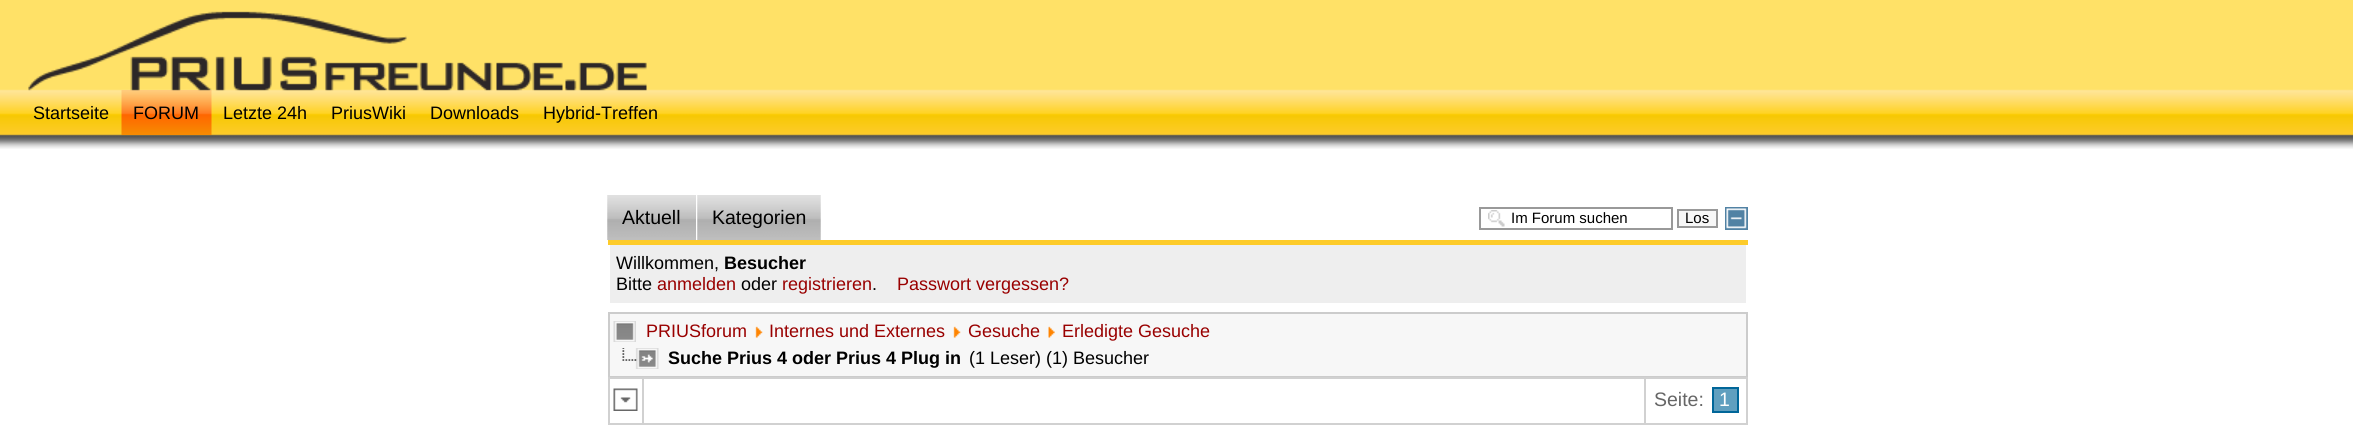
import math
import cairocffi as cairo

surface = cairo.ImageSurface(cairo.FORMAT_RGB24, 2353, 432)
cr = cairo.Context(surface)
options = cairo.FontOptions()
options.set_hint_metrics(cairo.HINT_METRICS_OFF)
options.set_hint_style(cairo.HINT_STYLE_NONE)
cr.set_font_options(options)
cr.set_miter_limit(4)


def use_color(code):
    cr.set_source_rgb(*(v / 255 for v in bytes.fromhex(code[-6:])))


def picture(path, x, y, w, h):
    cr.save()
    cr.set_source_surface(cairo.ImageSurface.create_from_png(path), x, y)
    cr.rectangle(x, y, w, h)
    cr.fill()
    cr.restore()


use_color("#ffffff")
cr.paint()
picture("img1.png", 0, 0, 2353, 149)
picture("img3.png", 121, 90, 91, 45)
picture("img2.png", 28, 11, 619, 80)
cr.select_font_face("Liberation Sans")
cr.set_font_size(18)
use_color("#000000")
cr.move_to(33, 119)
cr.show_text("Startseite")
cr.move_to(133, 119)
cr.show_text("FORUM")
cr.move_to(223, 119)
cr.show_text("Letzte 24h")
cr.move_to(331, 119)
cr.show_text("PriusWiki")
cr.move_to(430, 119)
cr.show_text("Downloads")
cr.move_to(543, 119)
cr.show_text("Hybrid-Treffen")
use_color("#fdcb2a")
cr.rectangle(608, 240, 1140, 5)
cr.fill()
picture("img4.png", 607, 195, 89, 45)
picture("img5.png", 607, 195, 1, 45)
cr.set_font_size(19.5)
use_color("#000000")
cr.move_to(622, 224)
cr.show_text("Aktuell")
picture("img6.png", 697, 195, 124, 45)
picture("img7.png", 697, 195, 124, 45)
cr.move_to(712, 224)
cr.show_text("Kategorien")
picture("img8.png", 1488, 210, 17, 17)
cr.rectangle(1480, 208, 192, 21)
use_color("#999999")
cr.stroke()
cr.set_font_size(15)
use_color("#000000")
cr.move_to(1511, 223)
cr.show_text("Im Forum suchen")
use_color("#f7f7f7")
cr.rectangle(1678, 210, 39, 17)
cr.fill_preserve()
use_color("#999999")
cr.stroke()
use_color("#000000")
cr.move_to(1685, 223)
cr.show_text("Los")
use_color("#5182a4")
cr.rectangle(1725, 207, 23, 23)
cr.fill()
picture("img9.png", 1726, 208, 21, 21)
use_color("#eeeeee")
cr.rectangle(610, 245, 1136, 58)
cr.fill()
cr.set_font_size(18)
use_color("#000000")
cr.move_to(616, 269)
cr.show_text("Willkommen,")
cr.select_font_face("Liberation Sans", cairo.FONT_SLANT_NORMAL, cairo.FONT_WEIGHT_BOLD)
cr.move_to(724, 269)
cr.show_text("Besucher")
cr.select_font_face("Liberation Sans")
cr.move_to(616, 290)
cr.show_text("Bitte")
use_color("#990000")
cr.move_to(657, 290)
cr.show_text("anmelden")
use_color("#000000")
cr.move_to(741, 290)
cr.show_text("oder")
use_color("#990000")
cr.move_to(782, 290)
cr.show_text("registrieren")
use_color("#000000")
cr.move_to(872, 290)
cr.show_text(".")
use_color("#990000")
cr.move_to(897, 290)
cr.show_text("Passwort vergessen?")
use_color("#f7f7f7")
cr.rectangle(609, 313, 1138, 64)
cr.fill_preserve()
use_color("#cccccc")
cr.stroke()
picture("img10.png", 613, 321, 23, 21)
use_color("#990000")
cr.move_to(646, 337)
cr.show_text("PRIUSforum")
picture("img11.png", 755, 326, 8, 12)
cr.move_to(769, 337)
cr.show_text("Internes und Externes")
picture("img12.png", 953, 326, 8, 12)
cr.move_to(968, 337)
cr.show_text("Gesuche")
picture("img13.png", 1048, 326, 7, 12)
cr.move_to(1062, 337)
cr.show_text("Erledigte Gesuche")
picture("img14.png", 622, 348, 37, 21)
cr.select_font_face("Liberation Sans", cairo.FONT_SLANT_NORMAL, cairo.FONT_WEIGHT_BOLD)
use_color("#000000")
cr.move_to(668, 364)
cr.show_text("Suche Prius 4 oder Prius 4 Plug in")
cr.select_font_face("Liberation Sans")
cr.move_to(969, 364)
cr.show_text("(1 Leser) (1) Besucher")
cr.rectangle(609, 378, 1138, 46)
use_color("#d1d1d1")
cr.stroke()
picture("img15.png", 613, 388, 25, 23)
cr.rectangle(642, 378, 2, 45)
cr.fill()
cr.rectangle(1644, 378, 2, 45)
cr.fill()
cr.set_font_size(19.5)
use_color("#666666")
cr.move_to(1654, 406)
cr.show_text("Seite:")
use_color("#609fbf")
cr.rectangle(1713, 388, 25, 24)
cr.fill_preserve()
use_color("#006699")
cr.stroke()
use_color("#ffffff")
cr.move_to(1719, 406)
cr.show_text("1")
surface.write_to_png("result.png")
